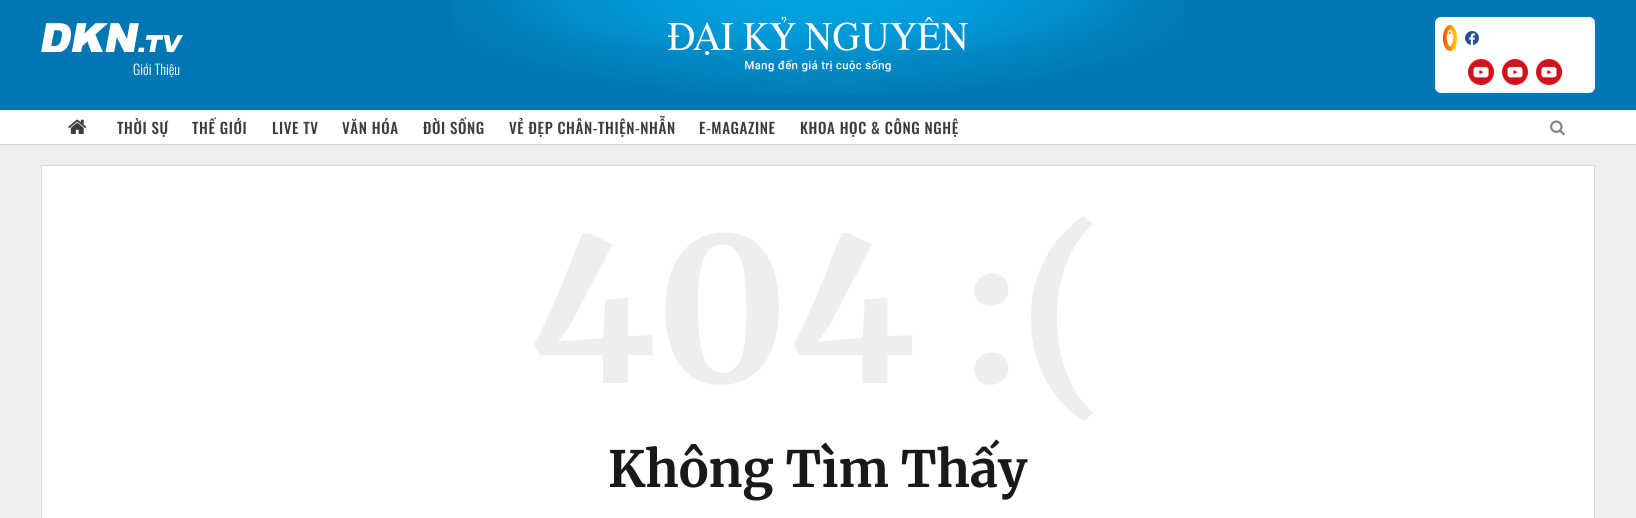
import math
import cairocffi as cairo

surface = cairo.ImageSurface(cairo.FORMAT_RGB24, 1636, 518)
cr = cairo.Context(surface)
options = cairo.FontOptions()
options.set_hint_metrics(cairo.HINT_METRICS_OFF)
options.set_hint_style(cairo.HINT_STYLE_NONE)
cr.set_font_options(options)
cr.set_miter_limit(4)


def use_color(code):
    cr.set_source_rgb(*(v / 255 for v in bytes.fromhex(code[-6:])))


def spaced_text(x, y, s, letter, word):
    cr.move_to(x, y)
    for ch in s:
        cr.show_text(ch)
        cr.rel_move_to(letter + word * (ch == ' '), 0)


def round_rect(x, y, w, h, r):
    cr.new_sub_path()
    for i, (u, v) in enumerate([(x + w - r, y + h - r), (x + r, y + h - r), (x + r, y + r), (x + w - r, y + r)]):
        cr.arc(u, v, r, i * math.pi / 2, (i + 1) * math.pi / 2)
    cr.close_path()


def picture(path, x, y, w, h):
    cr.save()
    cr.set_source_surface(cairo.ImageSurface.create_from_png(path), x, y)
    cr.rectangle(x, y, w, h)
    cr.fill()
    cr.restore()


use_color("#efefef")
cr.paint()
use_color("#0077b2")
cr.rectangle(0, 0, 1636, 110)
cr.fill()
picture("img1.png", 453, 0, 732, 94)
picture("img2.png", 41, 23, 142, 29)
cr.select_font_face("Oswald Light")
cr.set_font_size(14)
use_color("#ffffff")
cr.move_to(133, 75)
cr.show_text("Giới Thiệu")
picture("img3.png", 668, 17, 300, 55)
round_rect(1435, 17, 160, 76, 6)
cr.fill()
picture("img4.png", 1443, 25, 14, 26)
picture("img5.png", 1465, 31, 14, 14)
picture("img6.png", 1468, 59, 26, 26)
picture("img7.png", 1502, 59, 26, 26)
picture("img7.png", 1536, 59, 26, 26)
cr.rectangle(0, 110, 1636, 34)
cr.fill()
use_color("#d6d7d8")
cr.rectangle(0, 144, 1636, 1)
cr.fill()
picture("img8.png", 68, 119, 19, 15)
cr.select_font_face("Oswald Medium")
cr.set_font_size(15)
use_color("#3e3b3c")
spaced_text(117, 134, "THỜI SỰ", 0.6, 0)
spaced_text(192, 134, "THẾ GIỚI", 0.6, 0)
spaced_text(272, 134, "LIVE TV", 0.6, 0)
spaced_text(342, 134, "VĂN HÓA", 0.6, 0)
spaced_text(423, 134, "ĐỜI SỐNG", 0.6, 0)
spaced_text(509, 134, "VẺ ĐẸP CHÂN-THIỆN-NHẪN", 0.6, 0)
spaced_text(699, 134, "E-MAGAZINE", 0.6, 0)
spaced_text(800, 134, "KHOA HỌC & CÔNG NGHỆ", 0.6, 0)
picture("img9.png", 1550, 120, 15, 16)
use_color("#ffffff")
cr.rectangle(42, 166, 1552, 352)
cr.fill()
use_color("#d6d7d8")
cr.rectangle(41, 165, 1554, 1)
cr.fill()
cr.rectangle(1594, 165, 1, 353)
cr.fill()
cr.rectangle(41, 165, 1, 353)
cr.fill()
cr.select_font_face("Merriweather", cairo.FONT_SLANT_NORMAL, cairo.FONT_WEIGHT_BOLD)
cr.set_font_size(200)
use_color("#eeeeee")
cr.move_to(529, 383)
cr.show_text("404 :(")
cr.set_font_size(50)
use_color("#191919")
cr.move_to(608, 487)
cr.show_text("Không Tìm Thấy")
surface.write_to_png("result.png")
